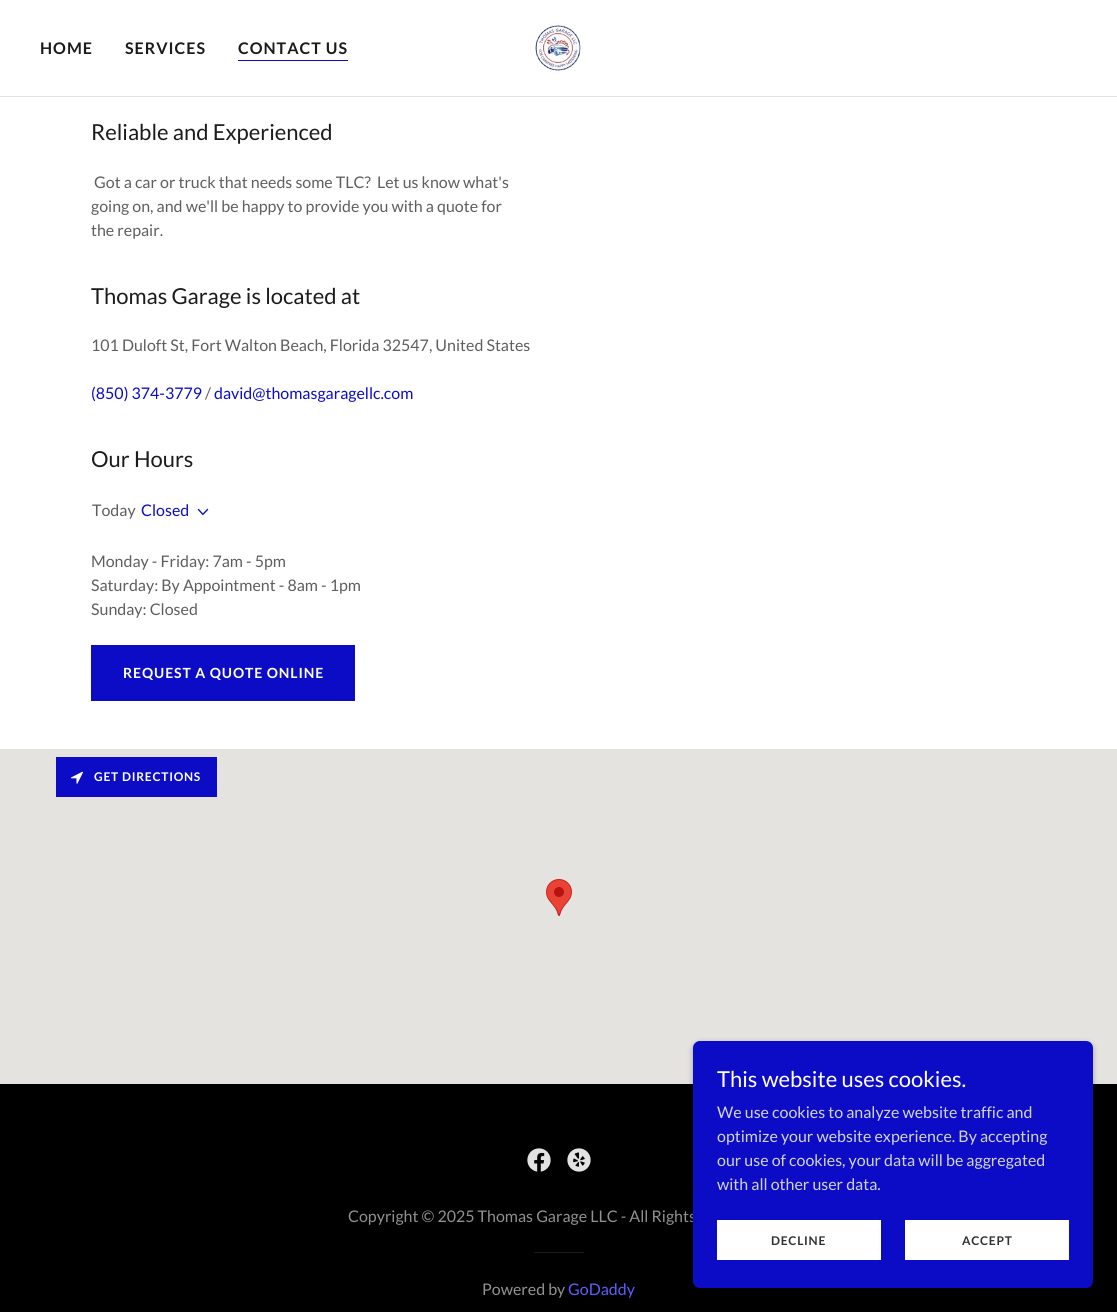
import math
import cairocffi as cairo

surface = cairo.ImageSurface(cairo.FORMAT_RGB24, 1117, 1312)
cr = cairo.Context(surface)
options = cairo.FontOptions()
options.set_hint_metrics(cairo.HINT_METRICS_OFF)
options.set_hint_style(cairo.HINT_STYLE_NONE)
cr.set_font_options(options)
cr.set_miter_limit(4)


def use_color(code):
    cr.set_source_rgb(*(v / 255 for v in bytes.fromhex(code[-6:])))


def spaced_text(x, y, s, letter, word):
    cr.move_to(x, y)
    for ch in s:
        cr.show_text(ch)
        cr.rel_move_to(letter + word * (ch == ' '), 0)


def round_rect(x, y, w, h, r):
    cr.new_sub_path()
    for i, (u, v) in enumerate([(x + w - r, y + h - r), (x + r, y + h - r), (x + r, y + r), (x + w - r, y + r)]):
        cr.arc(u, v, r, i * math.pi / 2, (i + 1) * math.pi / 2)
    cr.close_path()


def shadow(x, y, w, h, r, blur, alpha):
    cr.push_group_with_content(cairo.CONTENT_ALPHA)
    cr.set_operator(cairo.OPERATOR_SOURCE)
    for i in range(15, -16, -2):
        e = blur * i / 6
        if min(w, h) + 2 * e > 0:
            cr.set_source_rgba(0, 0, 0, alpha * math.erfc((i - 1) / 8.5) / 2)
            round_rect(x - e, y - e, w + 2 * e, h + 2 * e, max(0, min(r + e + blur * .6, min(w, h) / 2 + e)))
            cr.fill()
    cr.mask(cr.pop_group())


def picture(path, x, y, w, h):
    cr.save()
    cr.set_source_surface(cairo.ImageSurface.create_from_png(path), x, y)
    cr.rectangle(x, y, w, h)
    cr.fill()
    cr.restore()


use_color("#000000")
cr.paint()
use_color("#ffffff")
cr.rectangle(0, 0, 1117, 96)
cr.fill()
cr.select_font_face("Lato", cairo.FONT_SLANT_NORMAL, cairo.FONT_WEIGHT_BOLD)
cr.set_font_size(16)
use_color("#1b1b1b")
spaced_text(40, 54, "HOME", 1, 0)
spaced_text(125, 54, "SERVICES", 1, 0)
use_color("#0c0cc7")
cr.rectangle(238, 60, 110, 1)
cr.fill()
use_color("#1b1b1b")
spaced_text(238, 54, "CONTACT US", 1, 0)
picture("img1.png", 535, 25, 46, 46)
use_color("#e2e2e2")
cr.rectangle(0, 96, 1117, 1)
cr.fill()
use_color("#ffffff")
cr.rectangle(0, 97, 1117, 652)
cr.fill()
cr.select_font_face("Lato")
cr.set_font_size(22)
use_color("#1b1b1b")
cr.move_to(91, 140)
cr.show_text("Reliable and Experienced")
cr.set_font_size(16)
use_color("#5e5e5e")
cr.move_to(94, 188)
cr.show_text("Got a car or truck that needs some TLC?  Let us know what's")
cr.move_to(91, 212)
cr.show_text("going on, and we'll be happy to provide you with a quote for")
cr.move_to(91, 236)
cr.show_text("the repair.")
cr.set_font_size(22)
use_color("#1b1b1b")
cr.move_to(91, 304)
cr.show_text("Thomas Garage is located at")
cr.set_font_size(16)
use_color("#5e5e5e")
cr.move_to(91, 351)
cr.show_text("101 Duloft St, Fort Walton Beach, Florida 32547, United States")
use_color("#0c0cc7")
cr.move_to(91, 399)
cr.show_text("(850) 374-3779")
use_color("#5e5e5e")
cr.move_to(205, 399)
cr.show_text("/")
use_color("#0c0cc7")
cr.move_to(214, 399)
cr.show_text("david@thomasgaragellc.com")
cr.set_font_size(22)
use_color("#1b1b1b")
cr.move_to(91, 467)
cr.show_text("Our Hours")
cr.set_font_size(16)
use_color("#5e5e5e")
cr.move_to(92, 516)
cr.show_text("Today")
use_color("#0c0cc7")
cr.move_to(141, 516)
cr.show_text("Closed")
picture("img2.png", 197, 508, 12, 8)
use_color("#5e5e5e")
cr.move_to(91, 567)
cr.show_text("Monday - Friday: 7am - 5pm")
cr.move_to(91, 591)
cr.show_text("Saturday: By Appointment - 8am - 1pm")
cr.move_to(91, 615)
cr.show_text("Sunday: Closed")
use_color("#0c0cc7")
cr.rectangle(91, 645, 264, 56)
cr.fill()
cr.select_font_face("Lato", cairo.FONT_SLANT_NORMAL, cairo.FONT_WEIGHT_BOLD)
cr.set_font_size(14)
use_color("#ffffff")
spaced_text(123, 678, "REQUEST A QUOTE ONLINE", 0.9, 0)
use_color("#e5e3df")
cr.rectangle(0, 749, 1117, 335)
cr.fill()
picture("img3.png", 546, 879, 26, 37)
use_color("#0c0cc7")
cr.rectangle(56, 757, 161, 40)
cr.fill()
picture("img4.png", 71, 771, 12, 13)
cr.set_font_size(12)
use_color("#ffffff")
spaced_text(94, 781, "GET DIRECTIONS", 0.75, 0)
picture("img5.png", 527, 1148, 24, 24)
picture("img6.png", 567, 1148, 24, 24)
cr.select_font_face("Lato")
cr.set_font_size(16)
use_color("#919191")
cr.move_to(348, 1222)
cr.show_text("Copyright © 2025 Thomas Garage LLC - All Rights")
use_color("#1b1b1b")
cr.rectangle(534, 1252, 50, 1)
cr.fill()
use_color("#919191")
cr.move_to(482, 1295)
cr.show_text("Powered by")
use_color("#5e5eff")
cr.move_to(568, 1295)
cr.show_text("GoDaddy")
use_color("#000000")
shadow(693, 1043, 400, 247, 7, 3, 0.3)
use_color("#0c0cc7")
round_rect(693, 1041, 400, 247, 7)
cr.fill()
cr.set_font_size(22)
use_color("#ffffff")
cr.move_to(717, 1087)
cr.show_text("This website uses cookies.")
cr.set_font_size(16)
use_color("#d4d4dd")
cr.move_to(717, 1118)
cr.show_text("We use cookies to analyze website traffic and")
cr.move_to(717, 1142)
cr.show_text("optimize your website experience. By accepting")
cr.move_to(717, 1166)
cr.show_text("our use of cookies, your data will be aggregated")
cr.move_to(717, 1190)
cr.show_text("with all other user data.")
use_color("#ffffff")
cr.rectangle(717, 1220, 164, 40)
cr.fill()
cr.select_font_face("Lato", cairo.FONT_SLANT_NORMAL, cairo.FONT_WEIGHT_BOLD)
cr.set_font_size(12)
use_color("#303030")
spaced_text(771, 1245, "DECLINE", 0.75, 0)
use_color("#ffffff")
cr.rectangle(905, 1220, 164, 40)
cr.fill()
use_color("#303030")
spaced_text(962, 1245, "ACCEPT", 0.75, 0)
surface.write_to_png("result.png")
